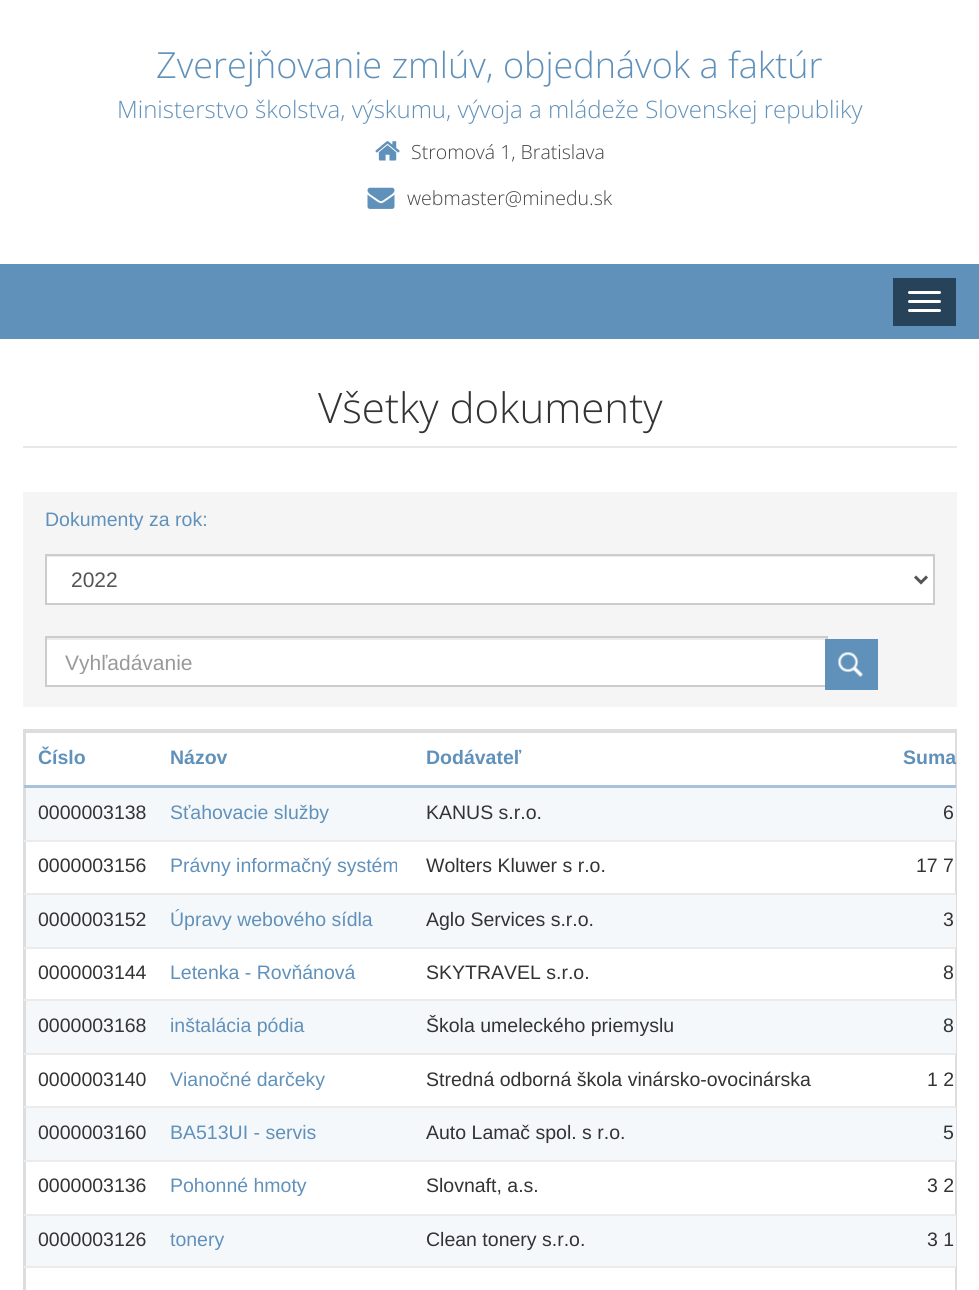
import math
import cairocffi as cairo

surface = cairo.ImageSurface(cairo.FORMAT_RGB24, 979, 1290)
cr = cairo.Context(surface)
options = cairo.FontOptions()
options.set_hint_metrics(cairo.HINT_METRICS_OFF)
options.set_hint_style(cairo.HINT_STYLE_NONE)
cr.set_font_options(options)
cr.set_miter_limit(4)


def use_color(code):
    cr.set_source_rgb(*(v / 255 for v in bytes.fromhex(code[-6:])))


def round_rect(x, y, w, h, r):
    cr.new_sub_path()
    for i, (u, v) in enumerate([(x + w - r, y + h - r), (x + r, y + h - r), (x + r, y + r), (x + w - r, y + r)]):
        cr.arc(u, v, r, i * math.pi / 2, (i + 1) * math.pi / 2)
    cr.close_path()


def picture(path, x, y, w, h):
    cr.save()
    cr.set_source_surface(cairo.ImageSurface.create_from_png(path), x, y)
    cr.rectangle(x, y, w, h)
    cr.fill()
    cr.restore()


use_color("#ffffff")
cr.paint()
cr.select_font_face("Open Sans Light")
cr.set_font_size(36)
use_color("#6091ba")
cr.move_to(156, 78)
cr.show_text("Zverejňovanie zmlúv, objednávok a faktúr")
cr.set_font_size(24)
cr.move_to(117, 118)
cr.show_text("Ministerstvo školstva, výskumu, vývoja a mládeže Slovenskej republiky")
picture("img1.png", 375, 141, 25, 20)
cr.set_font_size(19.5)
use_color("#444444")
cr.move_to(411, 159)
cr.show_text("Stromová 1, Bratislava")
picture("img2.png", 367, 187, 28, 22)
cr.move_to(407, 205)
cr.show_text("webmaster@minedu.sk")
use_color("#6091ba")
cr.rectangle(0, 264, 979, 75)
cr.fill()
use_color("#27435a")
cr.rectangle(893, 278, 63, 48)
cr.fill()
use_color("#ffffff")
round_rect(908, 291, 33, 3, 1.5)
cr.fill()
round_rect(908, 300, 33, 3, 1.5)
cr.fill()
round_rect(908, 309, 33, 3, 1.5)
cr.fill()
use_color("#e8e8e8")
cr.rectangle(23, 446, 934, 2)
cr.fill()
cr.set_font_size(42)
use_color("#333333")
cr.move_to(318, 423)
cr.show_text("Všetky dokumenty")
use_color("#f5f5f5")
cr.rectangle(23, 492, 934, 215)
cr.fill()
cr.select_font_face("Liberation Sans")
cr.set_font_size(19.5)
use_color("#6091ba")
cr.move_to(45, 526)
cr.show_text("Dokumenty za rok:")
use_color("#ffffff")
cr.rectangle(47, 557, 886, 46)
cr.fill()
use_color("#ececec")
cr.rectangle(47, 556, 886, 1)
cr.fill()
cr.rectangle(46, 555, 888, 49)
use_color("#cccccc")
cr.stroke()
cr.new_path()
cr.move_to(915, 576.5)
cr.line_to(921, 582.5)
cr.line_to(927, 576.5)
use_color("#555555")
cr.set_line_width(3)
cr.stroke()
cr.set_font_size(21)
cr.move_to(71, 587)
cr.show_text("2022")
use_color("#ffffff")
cr.rectangle(47, 640, 778, 45)
cr.fill()
use_color("#ececec")
cr.rectangle(47, 638, 780, 2)
cr.fill()
cr.rectangle(46, 637, 781, 49)
use_color("#cccccc")
cr.set_line_width(2)
cr.stroke()
cr.save()
cr.rectangle(65, 650, 744, 24)
cr.clip()
use_color("#999999")
cr.move_to(65, 670)
cr.show_text("Vyhľadávanie")
cr.restore()
use_color("#6091ba")
cr.rectangle(825, 639, 53, 51)
cr.fill()
picture("img3.png", 838, 652, 25, 25)
cr.rectangle(24, 730, 932, 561)
use_color("#dddddd")
cr.stroke()
cr.rectangle(24, 731, 932, 2)
cr.fill()
cr.rectangle(25, 731, 1, 559)
cr.fill()
cr.select_font_face("Liberation Sans", cairo.FONT_SLANT_NORMAL, cairo.FONT_WEIGHT_BOLD)
cr.set_font_size(19.5)
use_color("#6091ba")
cr.move_to(38, 764)
cr.show_text("Číslo")
cr.move_to(170, 764)
cr.show_text("Názov")
cr.move_to(426, 764)
cr.show_text("Dodávateľ")
use_color("#a7c2d9")
cr.rectangle(24, 785, 932, 3)
cr.fill()
use_color("#6091ba")
cr.move_to(903, 764)
cr.show_text("Suma")
use_color("#f5f8fb")
cr.rectangle(26, 788, 930, 52)
cr.fill()
cr.select_font_face("Liberation Sans")
use_color("#333333")
cr.move_to(38, 819)
cr.show_text("0000003138")
use_color("#6091ba")
cr.move_to(170, 819)
cr.show_text("Sťahovacie služby")
use_color("#333333")
cr.move_to(426, 819)
cr.show_text("KANUS s.r.o.")
cr.move_to(943, 819)
cr.show_text("6")
cr.move_to(38, 872)
cr.show_text("0000003156")
use_color("#6091ba")
cr.move_to(170, 872)
cr.show_text("Právny informačný systém")
use_color("#333333")
cr.move_to(426, 872)
cr.show_text("Wolters Kluwer s r.o.")
use_color("#ebebeb")
cr.rectangle(24, 840, 932, 2)
cr.fill()
use_color("#333333")
cr.move_to(916, 872)
cr.show_text("17 7")
use_color("#f5f8fb")
cr.rectangle(26, 895, 930, 52)
cr.fill()
use_color("#333333")
cr.move_to(38, 926)
cr.show_text("0000003152")
use_color("#6091ba")
cr.move_to(170, 926)
cr.show_text("Úpravy webového sídla")
use_color("#333333")
cr.move_to(426, 926)
cr.show_text("Aglo Services s.r.o.")
use_color("#ebebeb")
cr.rectangle(24, 893, 932, 2)
cr.fill()
use_color("#333333")
cr.move_to(943, 926)
cr.show_text("3")
cr.move_to(38, 979)
cr.show_text("0000003144")
use_color("#6091ba")
cr.move_to(170, 979)
cr.show_text("Letenka - Rovňánová")
use_color("#333333")
cr.move_to(426, 979)
cr.show_text("SKYTRAVEL s.r.o.")
use_color("#ebebeb")
cr.rectangle(24, 947, 932, 2)
cr.fill()
use_color("#333333")
cr.move_to(943, 979)
cr.show_text("8")
use_color("#f5f8fb")
cr.rectangle(26, 1001, 930, 52)
cr.fill()
use_color("#333333")
cr.move_to(38, 1032)
cr.show_text("0000003168")
use_color("#6091ba")
cr.move_to(170, 1032)
cr.show_text("inštalácia pódia")
use_color("#333333")
cr.move_to(426, 1032)
cr.show_text("Škola umeleckého priemyslu")
use_color("#ebebeb")
cr.rectangle(24, 999, 932, 2)
cr.fill()
use_color("#333333")
cr.move_to(943, 1032)
cr.show_text("8")
cr.move_to(38, 1086)
cr.show_text("0000003140")
use_color("#6091ba")
cr.move_to(170, 1086)
cr.show_text("Vianočné darčeky")
use_color("#333333")
cr.move_to(426, 1086)
cr.show_text("Stredná odborná škola vinársko-ovocinárska")
use_color("#ebebeb")
cr.rectangle(24, 1053, 932, 2)
cr.fill()
use_color("#333333")
cr.move_to(927, 1086)
cr.show_text("1 2")
use_color("#f5f8fb")
cr.rectangle(26, 1108, 930, 52)
cr.fill()
use_color("#333333")
cr.move_to(38, 1139)
cr.show_text("0000003160")
use_color("#6091ba")
cr.move_to(170, 1139)
cr.show_text("BA513UI - servis")
use_color("#333333")
cr.move_to(426, 1139)
cr.show_text("Auto Lamač spol. s r.o.")
use_color("#ebebeb")
cr.rectangle(24, 1106, 932, 2)
cr.fill()
use_color("#333333")
cr.move_to(943, 1139)
cr.show_text("5")
cr.move_to(38, 1192)
cr.show_text("0000003136")
use_color("#6091ba")
cr.move_to(170, 1192)
cr.show_text("Pohonné hmoty")
use_color("#333333")
cr.move_to(426, 1192)
cr.show_text("Slovnaft, a.s.")
use_color("#ebebeb")
cr.rectangle(24, 1160, 932, 2)
cr.fill()
use_color("#333333")
cr.move_to(927, 1192)
cr.show_text("3 2")
use_color("#f5f8fb")
cr.rectangle(26, 1216, 930, 50)
cr.fill()
use_color("#333333")
cr.move_to(38, 1246)
cr.show_text("0000003126")
use_color("#6091ba")
cr.move_to(170, 1246)
cr.show_text("tonery")
use_color("#333333")
cr.move_to(426, 1246)
cr.show_text("Clean tonery s.r.o.")
use_color("#ebebeb")
cr.rectangle(24, 1214, 932, 2)
cr.fill()
use_color("#333333")
cr.move_to(927, 1246)
cr.show_text("3 1")
use_color("#ebebeb")
cr.rectangle(24, 1266, 932, 2)
cr.fill()
surface.write_to_png("result.png")
